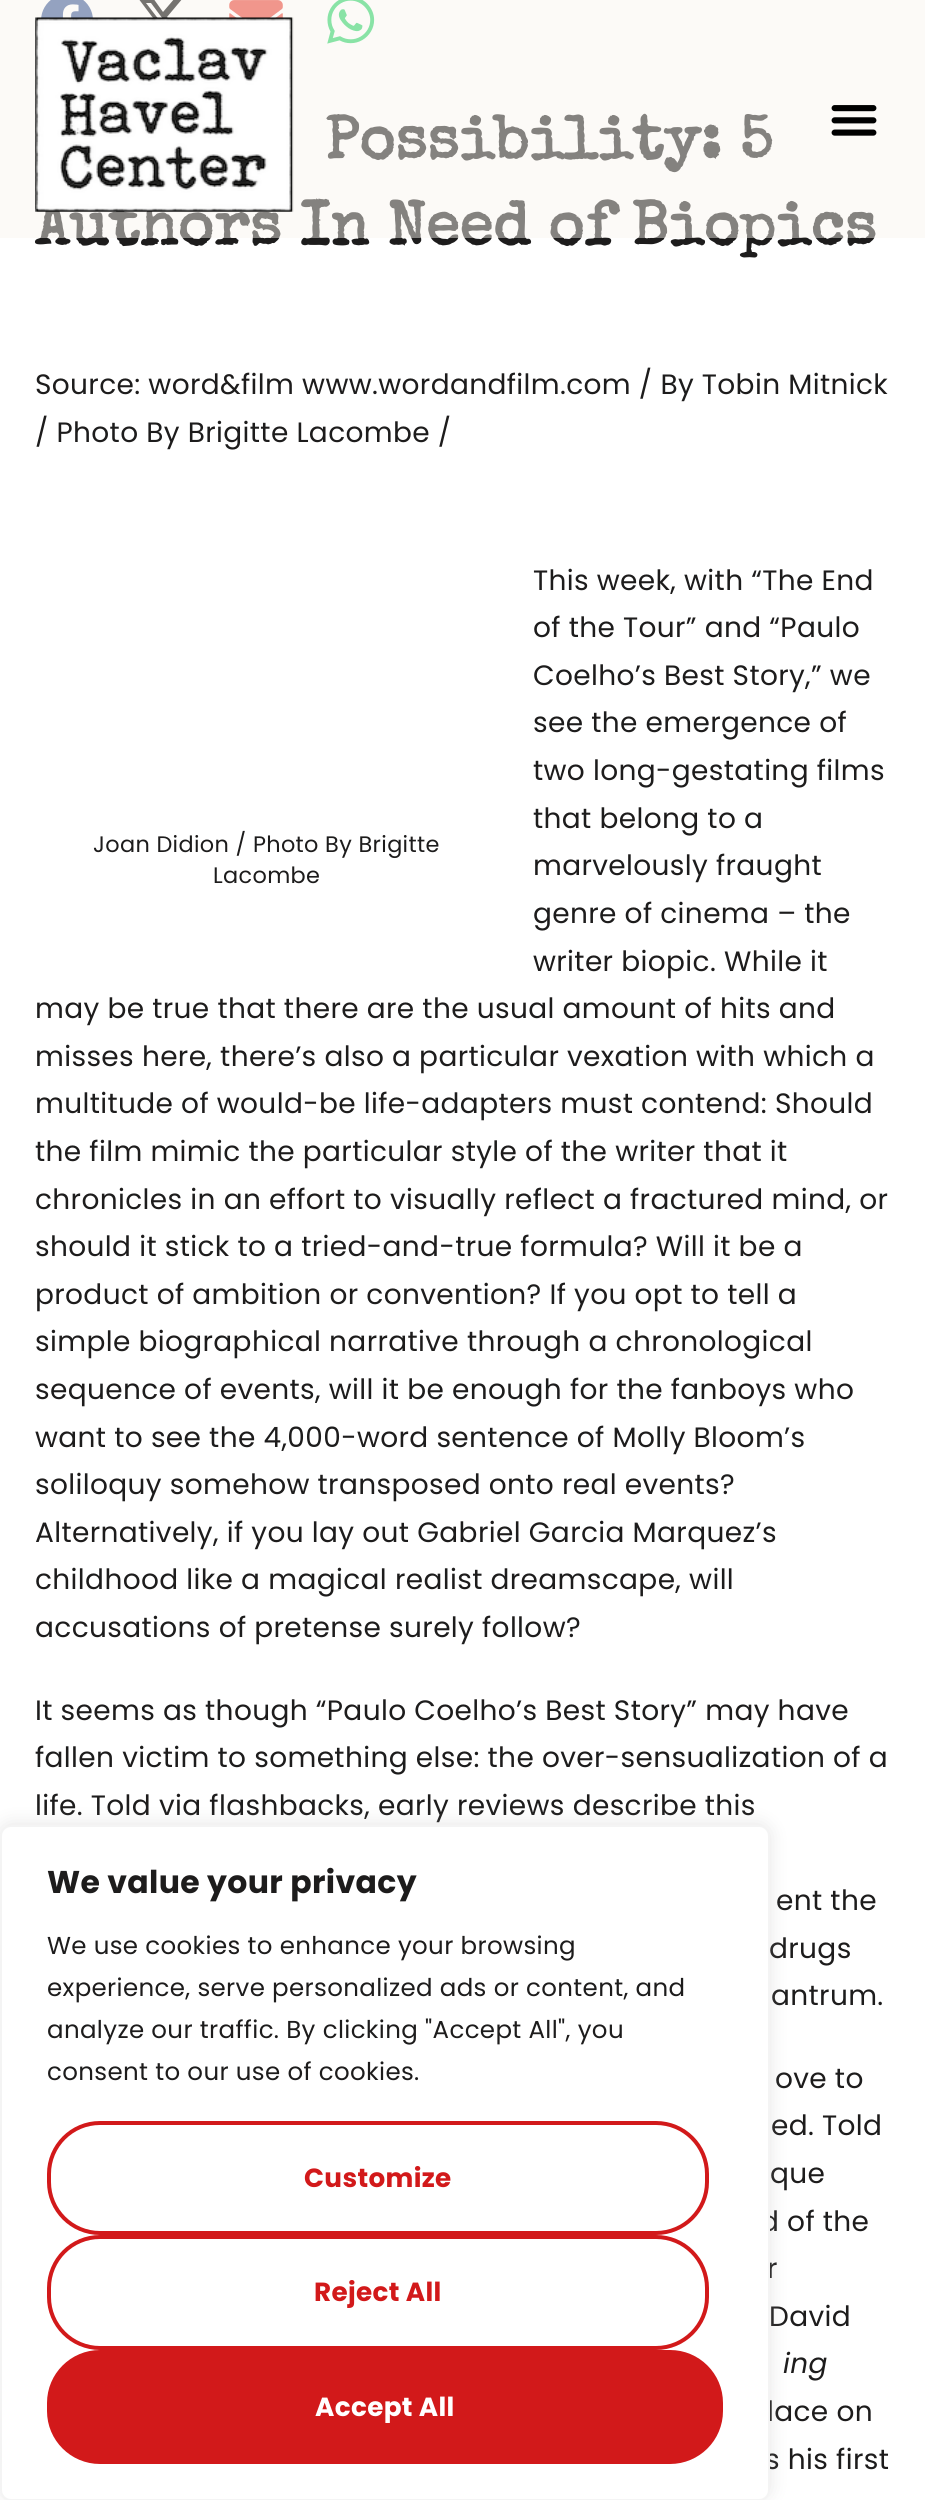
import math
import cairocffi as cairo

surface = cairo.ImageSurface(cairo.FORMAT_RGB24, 925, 2500)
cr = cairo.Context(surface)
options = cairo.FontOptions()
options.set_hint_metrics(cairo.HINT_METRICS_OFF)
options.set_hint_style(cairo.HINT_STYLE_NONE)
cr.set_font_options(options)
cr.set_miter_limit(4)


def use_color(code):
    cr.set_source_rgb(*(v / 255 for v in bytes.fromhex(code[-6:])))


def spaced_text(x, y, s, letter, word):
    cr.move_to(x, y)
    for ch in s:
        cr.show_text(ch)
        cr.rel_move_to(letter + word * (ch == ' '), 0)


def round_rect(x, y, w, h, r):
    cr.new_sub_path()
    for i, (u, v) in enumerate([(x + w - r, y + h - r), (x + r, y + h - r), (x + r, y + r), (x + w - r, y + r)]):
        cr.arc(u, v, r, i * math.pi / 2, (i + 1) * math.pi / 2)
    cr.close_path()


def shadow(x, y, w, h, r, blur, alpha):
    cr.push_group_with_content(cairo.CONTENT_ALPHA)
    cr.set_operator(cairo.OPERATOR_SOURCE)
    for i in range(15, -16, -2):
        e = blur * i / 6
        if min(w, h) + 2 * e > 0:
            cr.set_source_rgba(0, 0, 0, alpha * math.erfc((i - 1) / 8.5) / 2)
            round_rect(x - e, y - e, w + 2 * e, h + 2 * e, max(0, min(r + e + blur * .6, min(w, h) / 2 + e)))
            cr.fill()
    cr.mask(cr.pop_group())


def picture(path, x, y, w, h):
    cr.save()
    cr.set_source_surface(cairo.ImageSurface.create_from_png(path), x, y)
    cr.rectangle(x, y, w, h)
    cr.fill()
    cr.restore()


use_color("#ffffff")
cr.paint()
picture("img3.png", 41, 0, 52, 18)
use_color("#000000")
cr.set_fill_rule(cairo.FILL_RULE_EVEN_ODD)
cr.new_path()
cr.move_to(175, -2)
cr.line_to(183, -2)
cr.line_to(167, 17)
cr.line_to(186, 42)
cr.line_to(171, 42)
cr.line_to(159, 27)
cr.line_to(146, 42)
cr.line_to(139, 42)
cr.line_to(156, 22)
cr.line_to(138, -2)
cr.line_to(153, -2)
cr.line_to(163, 12)
cr.close_path()
cr.move_to(173, 38)
cr.line_to(146, 3)
cr.line_to(151, 3)
cr.line_to(177, 38)
cr.close_path()
cr.fill()
picture("img4.png", 229, 0, 54, 18)
picture("img5.png", 327, 0, 48, 44)
cr.select_font_face("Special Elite", cairo.FONT_SLANT_NORMAL, cairo.FONT_WEIGHT_BOLD)
cr.set_font_size(61.25)
use_color("#1d1c1c")
spaced_text(325, 158, "Possibility: 5", 0.2, 0)
spaced_text(35, 244, "Authors In Need of Biopics", 0.2, 0)
cr.set_source_rgba(0.973, 0.961, 0.937, 0.47)
cr.rectangle(0, 0, 925, 238)
cr.fill()
picture("img1.png", 35, 17, 259, 195)
picture("img2.png", 831, 105, 46, 31)
cr.select_font_face("Poppins")
cr.set_font_size(28)
use_color("#1d1c1c")
spaced_text(35, 394, "Source: word&film www.wordandfilm.com / By Tobin Mitnick", 0.35, 0)
spaced_text(35, 442, "/ Photo By Brigitte Lacombe /", 0.35, 0)
spaced_text(533, 590, "This week, with “The End", 0.35, 0)
spaced_text(533, 637, "of the Tour” and “Paulo", 0.35, 0)
spaced_text(533, 685, "Coelho’s Best Story,” we", 0.35, 0)
spaced_text(533, 732, "see the emergence of", 0.35, 0)
spaced_text(533, 780, "two long-gestating films", 0.35, 0)
spaced_text(533, 828, "that belong to a", 0.35, 0)
spaced_text(533, 875, "marvelously fraught", 0.35, 0)
spaced_text(533, 923, "genre of cinema – the", 0.35, 0)
spaced_text(533, 971, "writer biopic. While it", 0.35, 0)
spaced_text(35, 1018, "may be true that there are the usual amount of hits and", 0.35, 0)
spaced_text(35, 1066, "misses here, there’s also a particular vexation with which a", 0.35, 0)
spaced_text(35, 1113, "multitude of would-be life-adapters must contend: Should", 0.35, 0)
spaced_text(35, 1161, "the film mimic the particular style of the writer that it", 0.35, 0)
spaced_text(35, 1209, "chronicles in an effort to visually reflect a fractured mind, or", 0.35, 0)
spaced_text(35, 1256, "should it stick to a tried-and-true formula? Will it be a", 0.35, 0)
spaced_text(35, 1304, "product of ambition or convention? If you opt to tell a", 0.35, 0)
spaced_text(35, 1351, "simple biographical narrative through a chronological", 0.35, 0)
spaced_text(35, 1399, "sequence of events, will it be enough for the fanboys who", 0.35, 0)
spaced_text(35, 1447, "want to see the 4,000-word sentence of Molly Bloom’s", 0.35, 0)
spaced_text(35, 1494, "soliloquy somehow transposed onto real events?", 0.35, 0)
spaced_text(35, 1542, "Alternatively, if you lay out Gabriel Garcia Marquez’s", 0.35, 0)
spaced_text(35, 1589, "childhood like a magical realist dreamscape, will", 0.35, 0)
spaced_text(35, 1637, "accusations of pretense surely follow?", 0.35, 0)
cr.set_font_size(22.4)
spaced_text(93, 852, "Joan Didion / Photo By Brigitte", 0.35, 0)
spaced_text(213, 883, "Lacombe", 0.35, 0)
cr.set_font_size(28)
spaced_text(35, 1720, "It seems as though “Paulo Coelho’s Best Story” may have", 0.35, 0)
spaced_text(35, 1767, "fallen victim to something else: the over-sensualization of a", 0.35, 0)
spaced_text(35, 1815, "life. Told via flashbacks, early reviews describe this", 0.35, 0)
spaced_text(776, 1910, "ent the", 0.35, 0)
spaced_text(769, 1958, "drugs", 0.35, 0)
spaced_text(771, 2005, "antrum.", 0.35, 0)
spaced_text(775, 2088, "ove to", 0.35, 0)
spaced_text(771, 2135, "ed. Told", 0.35, 0)
spaced_text(770, 2183, "que", 0.35, 0)
spaced_text(760, 2231, "d of the", 0.35, 0)
spaced_text(767, 2278, "r", 0.35, 0)
spaced_text(769, 2326, "David", 0.35, 0)
cr.select_font_face("Poppins", cairo.FONT_SLANT_ITALIC)
spaced_text(783, 2373, "ing", 0.35, 0)
cr.select_font_face("Poppins")
spaced_text(767, 2421, "lace on", 0.35, 0)
spaced_text(765, 2469, "s his first", 0.35, 0)
use_color("#acabab")
shadow(0, 1824, 770, 675, 11, 9, 0.3)
use_color("#ffffff")
round_rect(1, 1826, 768, 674, 10)
cr.fill_preserve()
use_color("#f4f4f4")
cr.stroke()
cr.select_font_face("Poppins", cairo.FONT_SLANT_NORMAL, cairo.FONT_WEIGHT_BOLD)
cr.set_font_size(31.5)
use_color("#1d1c1c")
spaced_text(47, 1893, "We value your privacy", 0.35, 0)
cr.select_font_face("Poppins")
cr.set_font_size(24.5)
spaced_text(47, 1954, "We use cookies to enhance your browsing", 0.35, 0)
spaced_text(47, 1996, "experience, serve personalized ads or content, and", 0.35, 0)
spaced_text(47, 2038, "analyze our traffic. By clicking \"Accept All\", you", 0.35, 0)
spaced_text(47, 2080, "consent to our use of cookies.", 0.35, 0)
round_rect(49, 2123, 658, 110, 51)
use_color("#d2191a")
cr.set_line_width(4)
cr.stroke()
cr.select_font_face("Poppins", cairo.FONT_SLANT_NORMAL, cairo.FONT_WEIGHT_BOLD)
cr.set_font_size(26.25)
spaced_text(304, 2187, "Customize", 0.35, 0)
round_rect(49, 2237, 658, 111, 51)
cr.stroke()
spaced_text(314, 2301, "Reject All", 0.35, 0)
round_rect(49, 2352, 672, 110, 51)
cr.fill_preserve()
cr.stroke()
use_color("#ffffff")
spaced_text(315, 2416, "Accept All", 0.35, 0)
surface.write_to_png("result.png")
